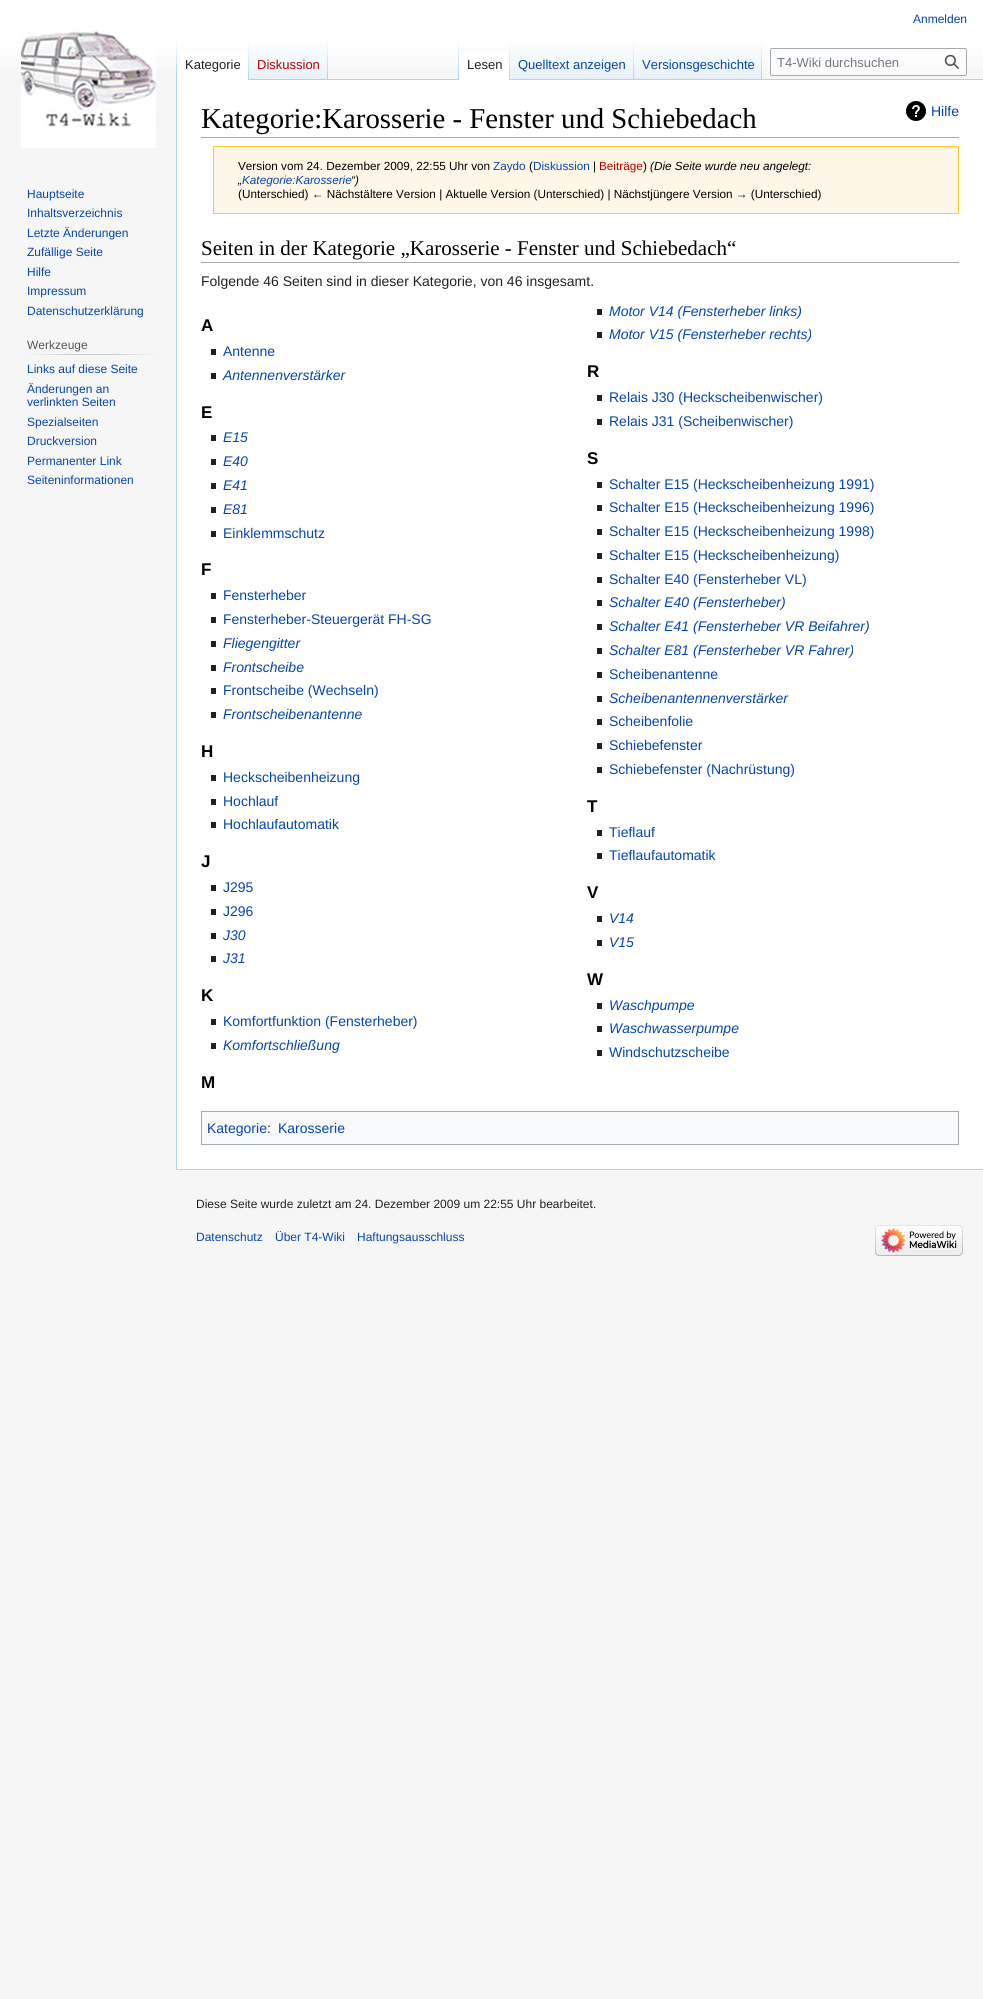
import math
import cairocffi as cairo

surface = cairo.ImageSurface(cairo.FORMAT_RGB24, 983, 1999)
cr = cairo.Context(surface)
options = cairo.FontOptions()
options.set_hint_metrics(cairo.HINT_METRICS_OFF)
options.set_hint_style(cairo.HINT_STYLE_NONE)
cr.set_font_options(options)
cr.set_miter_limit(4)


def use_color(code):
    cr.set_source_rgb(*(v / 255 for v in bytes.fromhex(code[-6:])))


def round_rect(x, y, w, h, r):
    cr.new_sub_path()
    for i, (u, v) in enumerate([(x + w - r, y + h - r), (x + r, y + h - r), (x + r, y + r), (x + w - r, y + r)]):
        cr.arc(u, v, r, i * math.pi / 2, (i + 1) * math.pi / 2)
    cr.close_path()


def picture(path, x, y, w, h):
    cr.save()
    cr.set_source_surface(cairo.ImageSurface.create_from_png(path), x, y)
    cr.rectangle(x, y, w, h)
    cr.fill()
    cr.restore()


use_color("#f6f6f6")
cr.paint()
gradient = cairo.LinearGradient(492, 0, 492, 80)
gradient.add_color_stop_rgba(0.5, 1, 1, 1, 1)
gradient.add_color_stop_rgba(1, 0.965, 0.965, 0.965, 1)
cr.set_source(gradient)
cr.rectangle(0, 0, 983, 69)
cr.fill()
cr.select_font_face("Liberation Sans")
cr.set_font_size(12)
use_color("#0645ad")
cr.move_to(913, 23)
cr.show_text("Anmelden")
use_color("#a7d7f9")
cr.rectangle(176, 1169, 807, 1)
cr.fill()
cr.rectangle(176, 79, 1, 1091)
cr.fill()
gradient = cairo.LinearGradient(177, 40, 177, 80)
gradient.add_color_stop_rgba(0, 0.655, 0.843, 0.976, 0)
gradient.add_color_stop_rgba(1, 0.655, 0.843, 0.976, 1)
cr.set_source(gradient)
cr.rectangle(176, 40, 1, 40)
cr.fill()
use_color("#ffffff")
cr.rectangle(177, 51, 71, 29)
cr.fill()
gradient = cairo.LinearGradient(249, 40, 249, 80)
gradient.add_color_stop_rgba(0, 1, 1, 1, 1)
gradient.add_color_stop_rgba(1, 0.655, 0.843, 0.976, 1)
cr.set_source(gradient)
cr.rectangle(248, 40, 1, 40)
cr.fill()
cr.set_font_size(13)
use_color("#202122")
cr.move_to(185, 69)
cr.show_text("Kategorie")
gradient = cairo.LinearGradient(289, 80, 289, 40)
gradient.add_color_stop_rgba(0, 0.467, 0.757, 0.965, 1)
gradient.add_color_stop_rgba(0.03, 0.91, 0.949, 0.973, 1)
gradient.add_color_stop_rgba(1, 1, 1, 1, 1)
cr.set_source(gradient)
cr.rectangle(249, 46, 79, 34)
cr.fill()
gradient = cairo.LinearGradient(328, 40, 328, 80)
gradient.add_color_stop_rgba(0, 0.655, 0.843, 0.976, 0)
gradient.add_color_stop_rgba(1, 0.655, 0.843, 0.976, 1)
cr.set_source(gradient)
cr.rectangle(327, 40, 1, 40)
cr.fill()
use_color("#ba0000")
cr.move_to(257, 69)
cr.show_text("Diskussion")
use_color("#a7d7f9")
cr.rectangle(328, 79, 655, 1)
cr.fill()
gradient = cairo.LinearGradient(459, 40, 459, 80)
gradient.add_color_stop_rgba(0, 0.655, 0.843, 0.976, 0)
gradient.add_color_stop_rgba(1, 0.655, 0.843, 0.976, 1)
cr.set_source(gradient)
cr.rectangle(458, 40, 1, 40)
cr.fill()
use_color("#ffffff")
cr.rectangle(459, 51, 50, 29)
cr.fill()
gradient = cairo.LinearGradient(510, 40, 510, 80)
gradient.add_color_stop_rgba(0, 1, 1, 1, 1)
gradient.add_color_stop_rgba(1, 0.655, 0.843, 0.976, 1)
cr.set_source(gradient)
cr.rectangle(509, 40, 1, 40)
cr.fill()
use_color("#202122")
cr.move_to(467, 69)
cr.show_text("Lesen")
gradient = cairo.LinearGradient(572, 80, 572, 40)
gradient.add_color_stop_rgba(0, 0.467, 0.757, 0.965, 1)
gradient.add_color_stop_rgba(0.03, 0.91, 0.949, 0.973, 1)
gradient.add_color_stop_rgba(1, 1, 1, 1, 1)
cr.set_source(gradient)
cr.rectangle(510, 46, 124, 33)
cr.fill()
gradient = cairo.LinearGradient(634, 40, 634, 80)
gradient.add_color_stop_rgba(0, 0.655, 0.843, 0.976, 0)
gradient.add_color_stop_rgba(1, 0.655, 0.843, 0.976, 1)
cr.set_source(gradient)
cr.rectangle(633, 40, 1, 40)
cr.fill()
use_color("#0645ad")
cr.move_to(518, 69)
cr.show_text("Quelltext anzeigen")
gradient = cairo.LinearGradient(698, 80, 698, 40)
gradient.add_color_stop_rgba(0, 0.467, 0.757, 0.965, 1)
gradient.add_color_stop_rgba(0.03, 0.91, 0.949, 0.973, 1)
gradient.add_color_stop_rgba(1, 1, 1, 1, 1)
cr.set_source(gradient)
cr.rectangle(634, 46, 128, 33)
cr.fill()
gradient = cairo.LinearGradient(762, 40, 762, 80)
gradient.add_color_stop_rgba(0, 0.655, 0.843, 0.976, 0)
gradient.add_color_stop_rgba(1, 0.655, 0.843, 0.976, 1)
cr.set_source(gradient)
cr.rectangle(761, 40, 1, 40)
cr.fill()
use_color("#0645ad")
cr.move_to(642, 69)
cr.show_text("Versionsgeschichte")
cr.set_source_rgba(1, 1, 1, 0.5)
round_rect(770.5, 48.5, 196, 27, 1.5)
cr.fill_preserve()
use_color("#a2a9b1")
cr.set_line_width(1)
cr.stroke()
use_color("#72777d")
cr.move_to(777, 67)
cr.show_text("T4-Wiki durchsuchen")
picture("img1.png", 944, 54, 15, 15)
picture("img2.png", 21, 31, 135, 117)
cr.set_font_size(12)
use_color("#0645ad")
cr.move_to(27, 198)
cr.show_text("Hauptseite")
cr.move_to(27, 217)
cr.show_text("Inhaltsverzeichnis")
cr.move_to(27, 237)
cr.show_text("Letzte Änderungen")
cr.move_to(27, 256)
cr.show_text("Zufällige Seite")
cr.move_to(27, 276)
cr.show_text("Hilfe")
cr.move_to(27, 295)
cr.show_text("Impressum")
cr.move_to(27, 315)
cr.show_text("Datenschutzerklärung")
gradient = cairo.LinearGradient(27, 355, 158, 355)
gradient.add_color_stop_rgba(0, 0.965, 0.965, 0.965, 1)
gradient.add_color_stop_rgba(0.33, 0.784, 0.8, 0.82, 1)
gradient.add_color_stop_rgba(0.66, 0.784, 0.8, 0.82, 1)
gradient.add_color_stop_rgba(1, 0.965, 0.965, 0.965, 1)
cr.set_source(gradient)
cr.rectangle(27, 354, 131, 1)
cr.fill()
use_color("#54595d")
cr.move_to(27, 349)
cr.show_text("Werkzeuge")
use_color("#0645ad")
cr.move_to(27, 373)
cr.show_text("Links auf diese Seite")
cr.move_to(27, 393)
cr.show_text("Änderungen an")
cr.move_to(27, 406)
cr.show_text("verlinkten Seiten")
cr.move_to(27, 426)
cr.show_text("Spezialseiten")
cr.move_to(27, 445)
cr.show_text("Druckversion")
cr.move_to(27, 465)
cr.show_text("Permanenter Link")
cr.move_to(27, 484)
cr.show_text("Seiteninformationen")
use_color("#ffffff")
cr.rectangle(177, 80, 806, 1089)
cr.fill()
use_color("#a2a9b1")
cr.rectangle(201, 137, 758, 1)
cr.fill()
cr.select_font_face("Liberation Serif")
cr.set_font_size(28.75)
use_color("#000000")
cr.move_to(201, 128)
cr.show_text("Kategorie:Karosserie - Fenster und Schiebedach")
picture("img3.png", 906, 101, 20, 20)
cr.select_font_face("Liberation Sans")
cr.set_font_size(14)
use_color("#0645ad")
cr.move_to(931, 116)
cr.show_text("Hilfe")
use_color("#fef6e7")
cr.rectangle(213.5, 146.5, 745, 67)
cr.fill_preserve()
use_color("#ffcc33")
cr.stroke()
cr.set_font_size(11.75)
use_color("#000000")
cr.move_to(238, 170)
cr.show_text("Version vom 24. Dezember 2009, 22:55 Uhr von")
use_color("#0645ad")
cr.move_to(493, 170)
cr.show_text("Zaydo")
use_color("#000000")
cr.move_to(529, 170)
cr.show_text("(")
use_color("#0645ad")
cr.move_to(533, 170)
cr.show_text("Diskussion")
use_color("#000000")
cr.move_to(593, 170)
cr.show_text("|")
use_color("#ba0000")
cr.move_to(599, 170)
cr.show_text("Beiträge")
use_color("#000000")
cr.move_to(643, 170)
cr.show_text(")")
cr.select_font_face("Liberation Sans", cairo.FONT_SLANT_ITALIC)
cr.move_to(650, 170)
cr.show_text("(Die Seite wurde neu angelegt:")
cr.move_to(238, 184)
cr.show_text("„")
use_color("#0645ad")
cr.move_to(242, 184)
cr.show_text("Kategorie:Karosserie")
use_color("#000000")
cr.move_to(351, 184)
cr.show_text("“)")
cr.select_font_face("Liberation Sans")
cr.move_to(238, 198)
cr.show_text("(Unterschied) ← Nächstältere Version | Aktuelle Version (Unterschied) | Nächstjüngere Version → (Unterschied)")
use_color("#a2a9b1")
cr.rectangle(201, 262, 758, 1)
cr.fill()
cr.select_font_face("Liberation Serif")
cr.set_font_size(21)
use_color("#000000")
cr.move_to(201, 255)
cr.show_text("Seiten in der Kategorie „Karosserie - Fenster und Schiebedach“")
cr.select_font_face("Liberation Sans")
cr.set_font_size(14)
use_color("#202122")
cr.move_to(201, 286)
cr.show_text("Folgende 46 Seiten sind in dieser Kategorie, von 46 insgesamt.")
cr.rectangle(597, 309, 5, 6)
cr.fill()
cr.select_font_face("Liberation Sans", cairo.FONT_SLANT_ITALIC)
use_color("#0645ad")
cr.move_to(609, 316)
cr.show_text("Motor V14 (Fensterheber links)")
use_color("#202122")
cr.rectangle(597, 332, 5, 6)
cr.fill()
use_color("#0645ad")
cr.move_to(609, 339)
cr.show_text("Motor V15 (Fensterheber rechts)")
cr.select_font_face("Liberation Sans", cairo.FONT_SLANT_NORMAL, cairo.FONT_WEIGHT_BOLD)
cr.set_font_size(17)
use_color("#000000")
cr.move_to(201, 1088)
cr.show_text("M")
cr.move_to(201, 331)
cr.show_text("A")
use_color("#202122")
cr.rectangle(211, 349, 5, 6)
cr.fill()
cr.select_font_face("Liberation Sans")
cr.set_font_size(14)
use_color("#0645ad")
cr.move_to(223, 356)
cr.show_text("Antenne")
use_color("#202122")
cr.rectangle(211, 373, 5, 6)
cr.fill()
cr.select_font_face("Liberation Sans", cairo.FONT_SLANT_ITALIC)
use_color("#0645ad")
cr.move_to(223, 380)
cr.show_text("Antennenverstärker")
cr.select_font_face("Liberation Sans", cairo.FONT_SLANT_NORMAL, cairo.FONT_WEIGHT_BOLD)
cr.set_font_size(17)
use_color("#000000")
cr.move_to(587, 377)
cr.show_text("R")
use_color("#202122")
cr.rectangle(597, 395, 5, 6)
cr.fill()
cr.select_font_face("Liberation Sans")
cr.set_font_size(14)
use_color("#0645ad")
cr.move_to(609, 402)
cr.show_text("Relais J30 (Heckscheibenwischer)")
use_color("#202122")
cr.rectangle(597, 419, 5, 6)
cr.fill()
use_color("#0645ad")
cr.move_to(609, 426)
cr.show_text("Relais J31 (Scheibenwischer)")
cr.select_font_face("Liberation Sans", cairo.FONT_SLANT_NORMAL, cairo.FONT_WEIGHT_BOLD)
cr.set_font_size(17)
use_color("#000000")
cr.move_to(201, 418)
cr.show_text("E")
use_color("#202122")
cr.rectangle(211, 435, 5, 6)
cr.fill()
cr.select_font_face("Liberation Sans", cairo.FONT_SLANT_ITALIC)
cr.set_font_size(14)
use_color("#0645ad")
cr.move_to(223, 442)
cr.show_text("E15")
use_color("#202122")
cr.rectangle(211, 459, 5, 6)
cr.fill()
use_color("#0645ad")
cr.move_to(223, 466)
cr.show_text("E40")
use_color("#202122")
cr.rectangle(211, 483, 5, 6)
cr.fill()
use_color("#0645ad")
cr.move_to(223, 490)
cr.show_text("E41")
use_color("#202122")
cr.rectangle(211, 507, 5, 6)
cr.fill()
use_color("#0645ad")
cr.move_to(223, 514)
cr.show_text("E81")
use_color("#202122")
cr.rectangle(211, 531, 5, 6)
cr.fill()
cr.select_font_face("Liberation Sans")
use_color("#0645ad")
cr.move_to(223, 538)
cr.show_text("Einklemmschutz")
cr.select_font_face("Liberation Sans", cairo.FONT_SLANT_NORMAL, cairo.FONT_WEIGHT_BOLD)
cr.set_font_size(17)
use_color("#000000")
cr.move_to(587, 464)
cr.show_text("S")
use_color("#202122")
cr.rectangle(597, 482, 5, 6)
cr.fill()
cr.select_font_face("Liberation Sans")
cr.set_font_size(14)
use_color("#0645ad")
cr.move_to(609, 489)
cr.show_text("Schalter E15 (Heckscheibenheizung 1991)")
use_color("#202122")
cr.rectangle(597, 505, 5, 6)
cr.fill()
use_color("#0645ad")
cr.move_to(609, 512)
cr.show_text("Schalter E15 (Heckscheibenheizung 1996)")
use_color("#202122")
cr.rectangle(597, 529, 5, 6)
cr.fill()
use_color("#0645ad")
cr.move_to(609, 536)
cr.show_text("Schalter E15 (Heckscheibenheizung 1998)")
use_color("#202122")
cr.rectangle(597, 553, 5, 6)
cr.fill()
use_color("#0645ad")
cr.move_to(609, 560)
cr.show_text("Schalter E15 (Heckscheibenheizung)")
use_color("#202122")
cr.rectangle(597, 577, 5, 6)
cr.fill()
use_color("#0645ad")
cr.move_to(609, 584)
cr.show_text("Schalter E40 (Fensterheber VL)")
use_color("#202122")
cr.rectangle(597, 600, 5, 6)
cr.fill()
cr.select_font_face("Liberation Sans", cairo.FONT_SLANT_ITALIC)
use_color("#0645ad")
cr.move_to(609, 607)
cr.show_text("Schalter E40 (Fensterheber)")
use_color("#202122")
cr.rectangle(597, 624, 5, 6)
cr.fill()
use_color("#0645ad")
cr.move_to(609, 631)
cr.show_text("Schalter E41 (Fensterheber VR Beifahrer)")
use_color("#202122")
cr.rectangle(597, 648, 5, 6)
cr.fill()
use_color("#0645ad")
cr.move_to(609, 655)
cr.show_text("Schalter E81 (Fensterheber VR Fahrer)")
use_color("#202122")
cr.rectangle(597, 672, 5, 6)
cr.fill()
cr.select_font_face("Liberation Sans")
use_color("#0645ad")
cr.move_to(609, 679)
cr.show_text("Scheibenantenne")
use_color("#202122")
cr.rectangle(597, 696, 5, 6)
cr.fill()
cr.select_font_face("Liberation Sans", cairo.FONT_SLANT_ITALIC)
use_color("#0645ad")
cr.move_to(609, 703)
cr.show_text("Scheibenantennenverstärker")
use_color("#202122")
cr.rectangle(597, 719, 5, 6)
cr.fill()
cr.select_font_face("Liberation Sans")
use_color("#0645ad")
cr.move_to(609, 726)
cr.show_text("Scheibenfolie")
use_color("#202122")
cr.rectangle(597, 743, 5, 6)
cr.fill()
use_color("#0645ad")
cr.move_to(609, 750)
cr.show_text("Schiebefenster")
use_color("#202122")
cr.rectangle(597, 767, 5, 6)
cr.fill()
use_color("#0645ad")
cr.move_to(609, 774)
cr.show_text("Schiebefenster (Nachrüstung)")
cr.select_font_face("Liberation Sans", cairo.FONT_SLANT_NORMAL, cairo.FONT_WEIGHT_BOLD)
cr.set_font_size(17)
use_color("#000000")
cr.move_to(201, 575)
cr.show_text("F")
use_color("#202122")
cr.rectangle(211, 593, 5, 6)
cr.fill()
cr.select_font_face("Liberation Sans")
cr.set_font_size(14)
use_color("#0645ad")
cr.move_to(223, 600)
cr.show_text("Fensterheber")
use_color("#202122")
cr.rectangle(211, 617, 5, 6)
cr.fill()
use_color("#0645ad")
cr.move_to(223, 624)
cr.show_text("Fensterheber-Steuergerät FH-SG")
use_color("#202122")
cr.rectangle(211, 641, 5, 6)
cr.fill()
cr.select_font_face("Liberation Sans", cairo.FONT_SLANT_ITALIC)
use_color("#0645ad")
cr.move_to(223, 648)
cr.show_text("Fliegengitter")
use_color("#202122")
cr.rectangle(211, 665, 5, 6)
cr.fill()
use_color("#0645ad")
cr.move_to(223, 672)
cr.show_text("Frontscheibe")
use_color("#202122")
cr.rectangle(211, 688, 5, 6)
cr.fill()
cr.select_font_face("Liberation Sans")
use_color("#0645ad")
cr.move_to(223, 695)
cr.show_text("Frontscheibe (Wechseln)")
use_color("#202122")
cr.rectangle(211, 712, 5, 6)
cr.fill()
cr.select_font_face("Liberation Sans", cairo.FONT_SLANT_ITALIC)
use_color("#0645ad")
cr.move_to(223, 719)
cr.show_text("Frontscheibenantenne")
cr.select_font_face("Liberation Sans", cairo.FONT_SLANT_NORMAL, cairo.FONT_WEIGHT_BOLD)
cr.set_font_size(17)
use_color("#000000")
cr.move_to(201, 757)
cr.show_text("H")
use_color("#202122")
cr.rectangle(211, 775, 5, 6)
cr.fill()
cr.select_font_face("Liberation Sans")
cr.set_font_size(14)
use_color("#0645ad")
cr.move_to(223, 782)
cr.show_text("Heckscheibenheizung")
use_color("#202122")
cr.rectangle(211, 799, 5, 6)
cr.fill()
use_color("#0645ad")
cr.move_to(223, 806)
cr.show_text("Hochlauf")
use_color("#202122")
cr.rectangle(211, 822, 5, 6)
cr.fill()
use_color("#0645ad")
cr.move_to(223, 829)
cr.show_text("Hochlaufautomatik")
cr.select_font_face("Liberation Sans", cairo.FONT_SLANT_NORMAL, cairo.FONT_WEIGHT_BOLD)
cr.set_font_size(17)
use_color("#000000")
cr.move_to(587, 812)
cr.show_text("T")
use_color("#202122")
cr.rectangle(597, 830, 5, 6)
cr.fill()
cr.select_font_face("Liberation Sans")
cr.set_font_size(14)
use_color("#0645ad")
cr.move_to(609, 837)
cr.show_text("Tieflauf")
use_color("#202122")
cr.rectangle(597, 853, 5, 6)
cr.fill()
use_color("#0645ad")
cr.move_to(609, 860)
cr.show_text("Tieflaufautomatik")
cr.select_font_face("Liberation Sans", cairo.FONT_SLANT_NORMAL, cairo.FONT_WEIGHT_BOLD)
cr.set_font_size(17)
use_color("#000000")
cr.move_to(201, 867)
cr.show_text("J")
use_color("#202122")
cr.rectangle(211, 885, 5, 6)
cr.fill()
cr.select_font_face("Liberation Sans")
cr.set_font_size(14)
use_color("#0645ad")
cr.move_to(223, 892)
cr.show_text("J295")
use_color("#202122")
cr.rectangle(211, 909, 5, 6)
cr.fill()
use_color("#0645ad")
cr.move_to(223, 916)
cr.show_text("J296")
use_color("#202122")
cr.rectangle(211, 933, 5, 6)
cr.fill()
cr.select_font_face("Liberation Sans", cairo.FONT_SLANT_ITALIC)
use_color("#0645ad")
cr.move_to(223, 940)
cr.show_text("J30")
use_color("#202122")
cr.rectangle(211, 956, 5, 6)
cr.fill()
use_color("#0645ad")
cr.move_to(223, 963)
cr.show_text("J31")
cr.select_font_face("Liberation Sans", cairo.FONT_SLANT_NORMAL, cairo.FONT_WEIGHT_BOLD)
cr.set_font_size(17)
use_color("#000000")
cr.move_to(587, 898)
cr.show_text("V")
use_color("#202122")
cr.rectangle(597, 916, 5, 6)
cr.fill()
cr.select_font_face("Liberation Sans", cairo.FONT_SLANT_ITALIC)
cr.set_font_size(14)
use_color("#0645ad")
cr.move_to(609, 923)
cr.show_text("V14")
use_color("#202122")
cr.rectangle(597, 940, 5, 6)
cr.fill()
use_color("#0645ad")
cr.move_to(609, 947)
cr.show_text("V15")
cr.select_font_face("Liberation Sans", cairo.FONT_SLANT_NORMAL, cairo.FONT_WEIGHT_BOLD)
cr.set_font_size(17)
use_color("#000000")
cr.move_to(201, 1001)
cr.show_text("K")
use_color("#202122")
cr.rectangle(211, 1019, 5, 6)
cr.fill()
cr.select_font_face("Liberation Sans")
cr.set_font_size(14)
use_color("#0645ad")
cr.move_to(223, 1026)
cr.show_text("Komfortfunktion (Fensterheber)")
use_color("#202122")
cr.rectangle(211, 1043, 5, 6)
cr.fill()
cr.select_font_face("Liberation Sans", cairo.FONT_SLANT_ITALIC)
use_color("#0645ad")
cr.move_to(223, 1050)
cr.show_text("Komfortschließung")
cr.select_font_face("Liberation Sans", cairo.FONT_SLANT_NORMAL, cairo.FONT_WEIGHT_BOLD)
cr.set_font_size(17)
use_color("#000000")
cr.move_to(587, 985)
cr.show_text("W")
use_color("#202122")
cr.rectangle(597, 1003, 5, 6)
cr.fill()
cr.select_font_face("Liberation Sans", cairo.FONT_SLANT_ITALIC)
cr.set_font_size(14)
use_color("#0645ad")
cr.move_to(609, 1010)
cr.show_text("Waschpumpe")
use_color("#202122")
cr.rectangle(597, 1026, 5, 6)
cr.fill()
use_color("#0645ad")
cr.move_to(609, 1033)
cr.show_text("Waschwasserpumpe")
use_color("#202122")
cr.rectangle(597, 1050, 5, 6)
cr.fill()
cr.select_font_face("Liberation Sans")
use_color("#0645ad")
cr.move_to(609, 1057)
cr.show_text("Windschutzscheibe")
use_color("#f8f9fa")
cr.rectangle(201.5, 1111.5, 757, 33)
cr.fill_preserve()
use_color("#a2a9b1")
cr.stroke()
use_color("#0645ad")
cr.move_to(207, 1133)
cr.show_text("Kategorie")
use_color("#202122")
cr.move_to(267, 1133)
cr.show_text(":")
use_color("#0645ad")
cr.move_to(278, 1133)
cr.show_text("Karosserie")
cr.set_font_size(12)
use_color("#202122")
cr.move_to(196, 1208)
cr.show_text("Diese Seite wurde zuletzt am 24. Dezember 2009 um 22:55 Uhr bearbeitet.")
use_color("#0645ad")
cr.move_to(196, 1241)
cr.show_text("Datenschutz")
cr.move_to(275, 1241)
cr.show_text("Über T4-Wiki")
cr.move_to(357, 1241)
cr.show_text("Haftungsausschluss")
picture("img4.png", 875, 1225, 88, 31)
surface.write_to_png("result.png")
